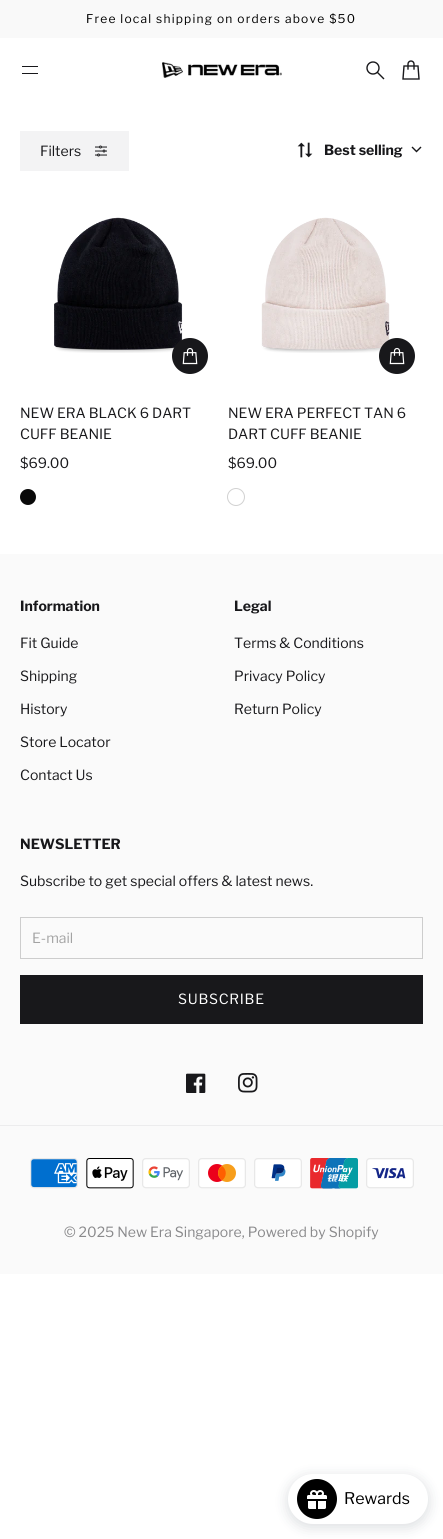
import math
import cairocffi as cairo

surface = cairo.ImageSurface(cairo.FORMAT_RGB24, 443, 1539)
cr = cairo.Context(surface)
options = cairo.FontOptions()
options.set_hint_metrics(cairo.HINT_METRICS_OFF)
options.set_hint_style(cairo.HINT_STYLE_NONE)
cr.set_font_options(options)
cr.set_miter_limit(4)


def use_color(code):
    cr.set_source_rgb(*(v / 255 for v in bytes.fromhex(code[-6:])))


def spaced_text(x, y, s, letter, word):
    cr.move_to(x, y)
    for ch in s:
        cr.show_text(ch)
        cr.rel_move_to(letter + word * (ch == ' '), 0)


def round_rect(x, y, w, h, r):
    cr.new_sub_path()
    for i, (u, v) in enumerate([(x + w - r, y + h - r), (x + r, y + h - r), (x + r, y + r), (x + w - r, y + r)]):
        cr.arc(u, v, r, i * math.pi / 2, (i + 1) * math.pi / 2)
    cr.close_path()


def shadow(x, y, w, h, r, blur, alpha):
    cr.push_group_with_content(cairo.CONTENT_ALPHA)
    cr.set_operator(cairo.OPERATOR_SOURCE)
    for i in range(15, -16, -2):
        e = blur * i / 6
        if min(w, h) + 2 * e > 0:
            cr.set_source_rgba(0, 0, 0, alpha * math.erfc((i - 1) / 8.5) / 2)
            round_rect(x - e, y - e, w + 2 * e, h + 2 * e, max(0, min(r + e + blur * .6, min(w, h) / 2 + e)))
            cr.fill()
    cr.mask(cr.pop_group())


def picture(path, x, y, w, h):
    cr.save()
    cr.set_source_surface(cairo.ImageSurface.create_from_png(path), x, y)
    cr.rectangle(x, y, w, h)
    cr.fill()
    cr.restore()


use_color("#ffffff")
cr.paint()
use_color("#f9f9f9")
cr.rectangle(0, 0, 443, 38)
cr.fill()
cr.select_font_face("Libre Franklin")
cr.set_font_size(12)
use_color("#000000")
spaced_text(86, 23, "Free local shipping on orders above $50", 1.2, 0)
use_color("#18181b")
cr.rectangle(22, 73, 16, 1)
cr.fill()
cr.rectangle(22, 66, 16, 1)
cr.fill()
picture("img1.png", 162, 62, 120, 16)
cr.new_path()
cr.move_to(383.5, 78.5)
cr.line_to(377.5, 72.5)
cr.set_line_width(1.4)
cr.set_line_cap(cairo.LINE_CAP_SQUARE)
cr.stroke()
cr.arc(373, 68, 6, 0, 2 * math.pi)
cr.set_line_cap(cairo.LINE_CAP_BUTT)
cr.stroke()
picture("img2.png", 402, 60, 18, 20)
use_color("#f3f3f4")
cr.rectangle(20, 131, 109, 40)
cr.fill()
cr.set_font_size(14)
use_color("#18181b")
cr.move_to(40, 156)
cr.show_text("Filters")
picture("img3.png", 95, 145, 12, 12)
picture("img4.png", 297, 142, 16, 16)
cr.select_font_face("Libre Franklin", cairo.FONT_SLANT_NORMAL, cairo.FONT_WEIGHT_BOLD)
cr.move_to(324, 155)
cr.show_text("Best selling")
cr.new_path()
cr.move_to(412.5, 147.5)
cr.line_to(416.5, 151.5)
cr.line_to(420.5, 147.5)
cr.set_line_cap(cairo.LINE_CAP_SQUARE)
cr.stroke()
picture("img5.png", 54, 217, 129, 136)
cr.arc(190, 356, 18, 0, 2 * math.pi)
cr.fill()
picture("img6.png", 182, 347, 16, 18)
cr.select_font_face("Libre Franklin")
cr.move_to(20, 418)
cr.show_text("NEW ERA BLACK 6 DART")
cr.move_to(20, 439)
cr.show_text("CUFF BEANIE")
cr.move_to(20, 468)
cr.show_text("$69.00")
use_color("#090909")
cr.new_path()
cr.arc(28, 497, 8, 0, 2 * math.pi)
cr.fill()
picture("img7.png", 261, 217, 129, 136)
use_color("#18181b")
cr.arc(397, 356, 18, 0, 2 * math.pi)
cr.fill()
picture("img6.png", 389, 347, 16, 18)
cr.move_to(228, 418)
cr.show_text("NEW ERA PERFECT TAN 6")
cr.move_to(228, 439)
cr.show_text("DART CUFF BEANIE")
cr.move_to(228, 468)
cr.show_text("$69.00")
cr.new_path()
cr.arc(236, 497, 8.5, 0, 2 * math.pi)
use_color("#d1d1d1")
cr.set_line_width(1)
cr.set_line_cap(cairo.LINE_CAP_BUTT)
cr.stroke()
use_color("#fafafa")
cr.rectangle(0, 554, 443, 720)
cr.fill()
cr.select_font_face("Libre Franklin", cairo.FONT_SLANT_NORMAL, cairo.FONT_WEIGHT_BOLD)
use_color("#18181b")
cr.move_to(20, 611)
cr.show_text("Information")
cr.select_font_face("Libre Franklin")
cr.move_to(20, 648)
cr.show_text("Fit Guide")
cr.move_to(20, 681)
cr.show_text("Shipping")
cr.move_to(20, 714)
cr.show_text("History")
cr.move_to(20, 747)
cr.show_text("Store Locator")
cr.move_to(20, 780)
cr.show_text("Contact Us")
cr.select_font_face("Libre Franklin", cairo.FONT_SLANT_NORMAL, cairo.FONT_WEIGHT_BOLD)
cr.move_to(234, 611)
cr.show_text("Legal")
cr.select_font_face("Libre Franklin")
cr.move_to(234, 648)
cr.show_text("Terms & Conditions")
cr.move_to(234, 681)
cr.show_text("Privacy Policy")
cr.move_to(234, 714)
cr.show_text("Return Policy")
cr.select_font_face("Libre Franklin", cairo.FONT_SLANT_NORMAL, cairo.FONT_WEIGHT_BOLD)
cr.move_to(20, 849)
cr.show_text("NEWSLETTER")
cr.select_font_face("Libre Franklin")
cr.move_to(20, 886)
cr.show_text("Subscribe to get special offers & latest news.")
cr.rectangle(20.5, 917.5, 402, 41)
use_color("#cdcdcd")
cr.stroke()
use_color("#a3a3a3")
cr.move_to(32, 943)
cr.show_text("E-mail")
use_color("#18181b")
cr.rectangle(20, 975, 403, 49)
cr.fill()
use_color("#ffffff")
spaced_text(178, 1004, "SUBSCRIBE", 0.75, 0)
picture("img8.png", 186, 1073, 20, 20)
picture("img9.png", 238, 1073, 20, 20)
use_color("#ececed")
cr.rectangle(0, 1125, 443, 1)
cr.fill()
picture("img10.png", 30, 1158, 48, 31)
picture("img11.png", 86, 1158, 48, 31)
picture("img12.png", 142, 1158, 48, 31)
picture("img13.png", 198, 1158, 48, 31)
picture("img14.png", 254, 1158, 48, 31)
picture("img15.png", 310, 1158, 48, 31)
picture("img16.png", 366, 1158, 48, 31)
use_color("#89898b")
cr.move_to(64, 1237)
cr.show_text("© 2025 New Era Singapore, Powered by Shopify")
use_color("#112233")
shadow(288, 1477, 140, 50, 25, 7, 0.16)
use_color("#ffffff")
round_rect(288, 1474, 140, 50, 25)
cr.fill()
use_color("#000000")
cr.arc(317, 1499, 20, 0, 2 * math.pi)
cr.fill()
picture("img17.png", 307, 1490, 20, 19)
cr.set_font_size(16)
cr.move_to(344, 1504)
cr.show_text("Rewards")
surface.write_to_png("result.png")
